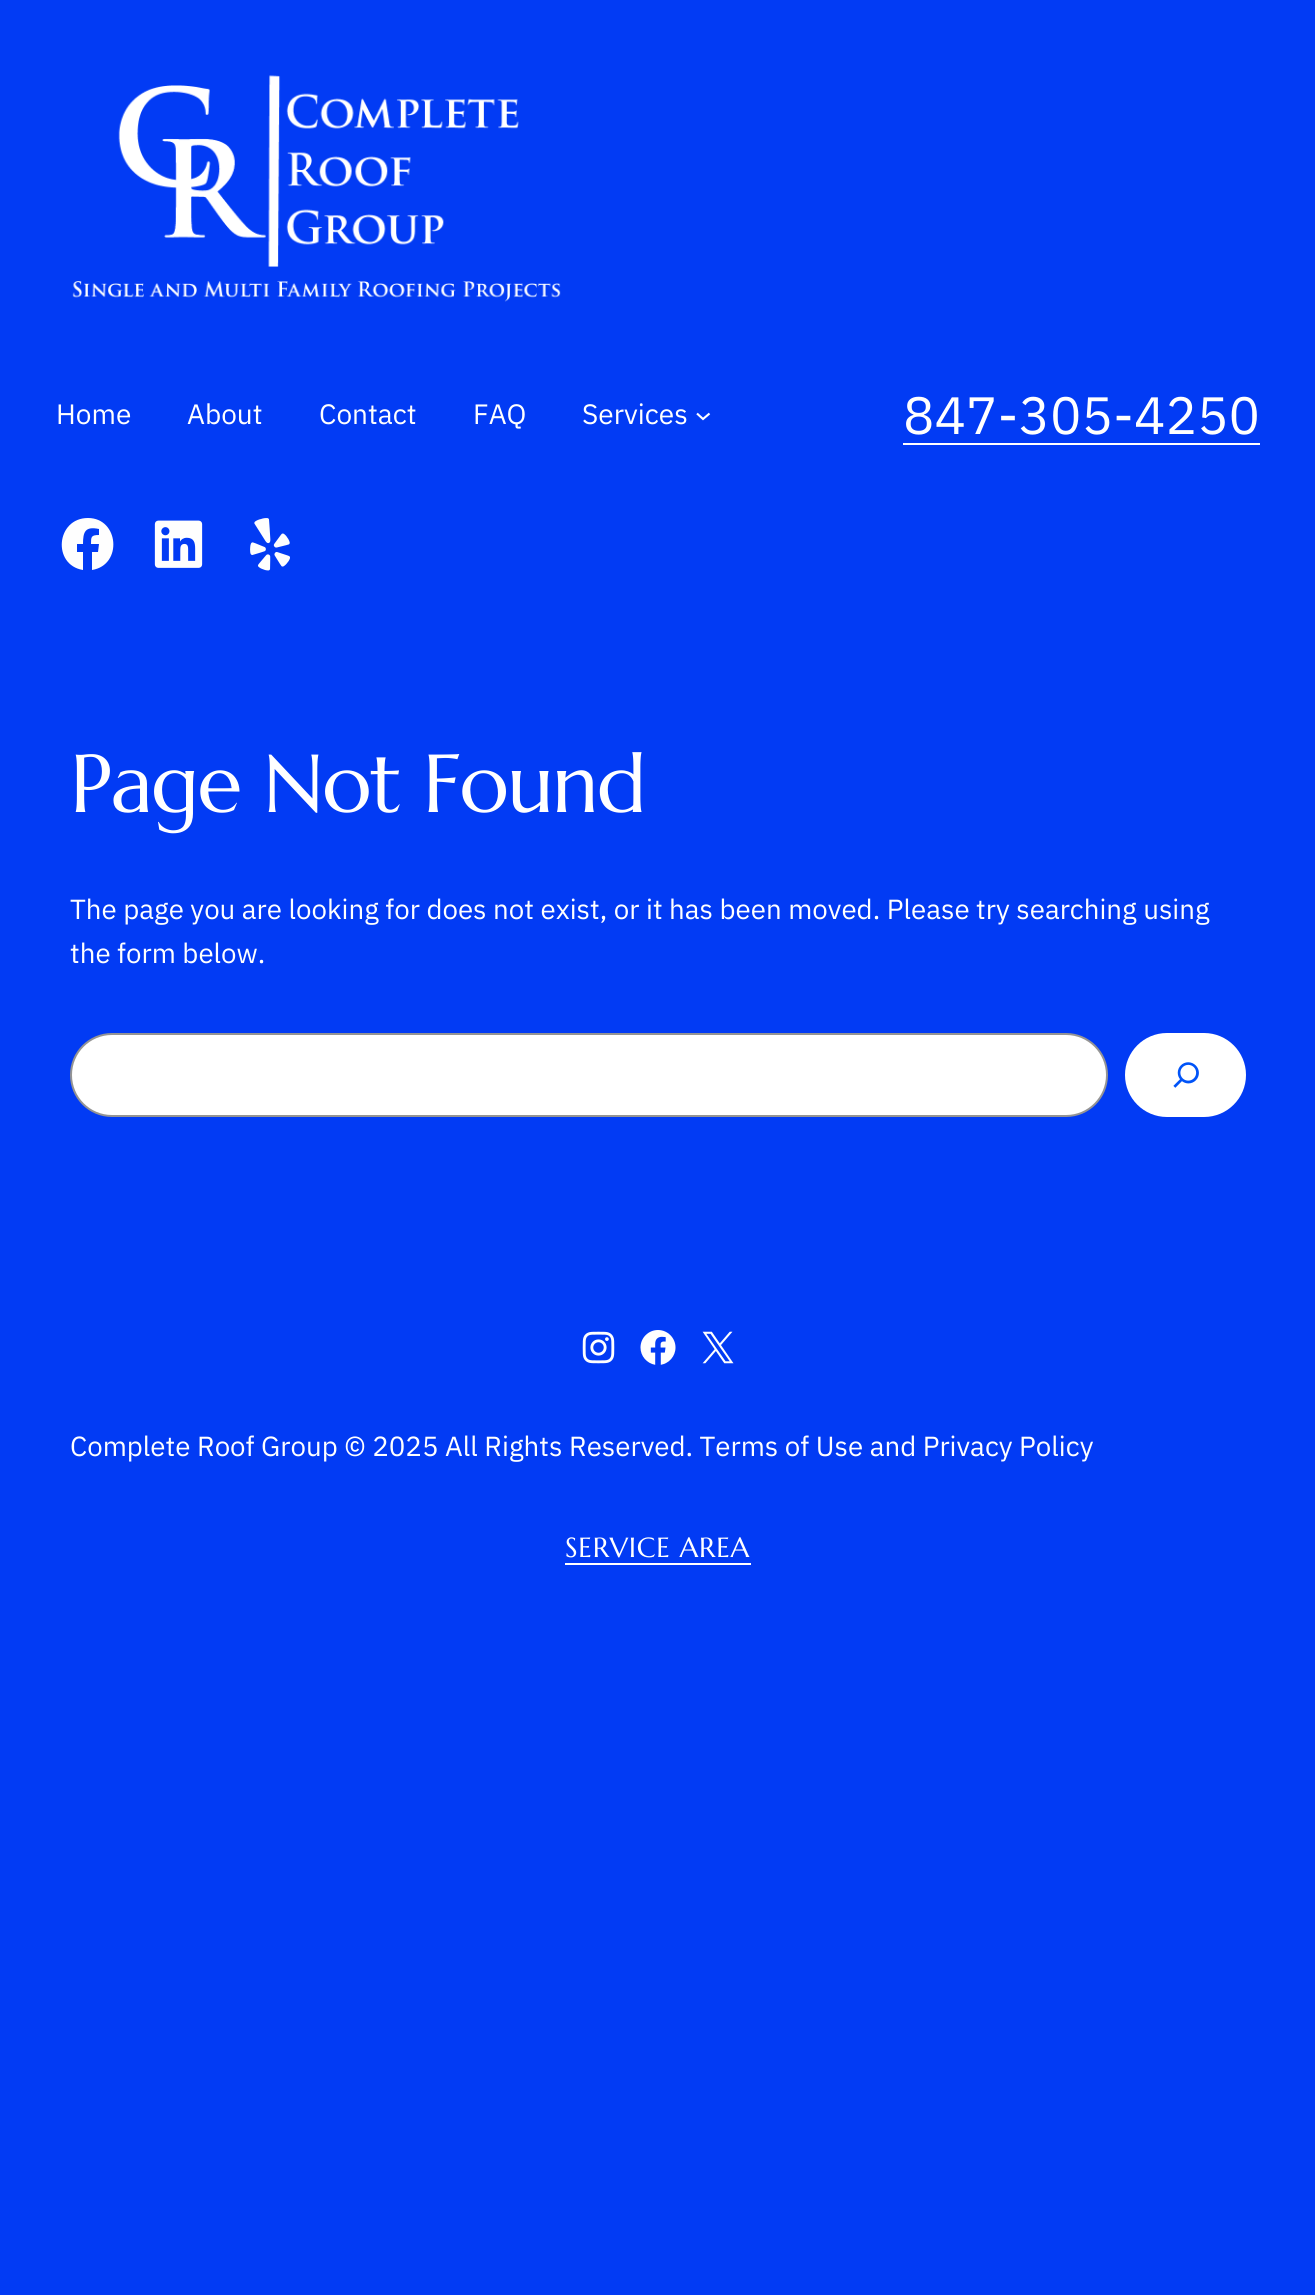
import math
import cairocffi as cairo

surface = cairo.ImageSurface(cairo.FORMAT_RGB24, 1315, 2295)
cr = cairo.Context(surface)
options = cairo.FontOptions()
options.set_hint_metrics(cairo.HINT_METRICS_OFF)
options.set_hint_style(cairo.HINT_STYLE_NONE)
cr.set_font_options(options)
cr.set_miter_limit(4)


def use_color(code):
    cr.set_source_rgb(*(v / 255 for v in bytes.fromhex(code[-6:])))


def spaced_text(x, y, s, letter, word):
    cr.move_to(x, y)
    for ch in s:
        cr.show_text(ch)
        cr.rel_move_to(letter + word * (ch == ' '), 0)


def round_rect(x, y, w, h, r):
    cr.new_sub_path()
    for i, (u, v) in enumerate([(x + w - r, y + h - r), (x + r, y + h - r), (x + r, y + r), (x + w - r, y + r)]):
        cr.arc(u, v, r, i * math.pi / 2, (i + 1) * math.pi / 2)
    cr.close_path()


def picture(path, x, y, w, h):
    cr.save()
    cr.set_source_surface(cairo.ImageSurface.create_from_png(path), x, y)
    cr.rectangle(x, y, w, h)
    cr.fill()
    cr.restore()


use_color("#023bf4")
cr.paint()
picture("img1.png", 72, 75, 489, 227)
cr.select_font_face("IBM Plex Sans")
cr.set_font_size(28)
use_color("#ffffff")
cr.move_to(56, 424)
cr.show_text("Home")
cr.move_to(187, 424)
cr.show_text("About")
cr.move_to(319, 424)
cr.show_text("Contact")
cr.move_to(473, 424)
cr.show_text("FAQ")
cr.move_to(582, 424)
cr.show_text("Services")
cr.new_path()
cr.move_to(697, 413.5)
cr.line_to(703, 419)
cr.line_to(709.5, 413.5)
cr.set_line_width(2.1)
cr.stroke()
cr.set_font_size(52.5)
cr.move_to(903, 434)
cr.show_text("847-305-4250")
cr.rectangle(903, 443, 357, 2)
cr.fill()
use_color("#fefefe")
cr.new_path()
cr.move_to(88, 518)
cr.curve_to(56, 518, 52, 565, 83, 570)
cr.line_to(83, 552)
cr.line_to(77, 552)
cr.line_to(77, 544)
cr.line_to(83, 544)
cr.curve_to(83, 532, 85, 526, 99, 529)
cr.line_to(99, 535)
cr.curve_to(91, 535, 91, 537, 91, 544)
cr.line_to(99, 544)
cr.line_to(98, 552)
cr.line_to(92, 552)
cr.line_to(92, 570)
cr.curve_to(123, 565, 119, 518, 88, 518)
cr.close_path()
cr.fill()
picture("img2.png", 154, 520, 49, 48)
picture("img3.png", 250, 518, 40, 53)
cr.select_font_face("Marcellus")
cr.set_font_size(82)
use_color("#ffffff")
spaced_text(70, 812, "Page Not Found", -1.6, 0)
cr.select_font_face("IBM Plex Sans")
cr.set_font_size(27.65)
cr.move_to(70, 919)
cr.show_text("The page you are looking for does not exist, or it has been moved. Please try searching using")
cr.move_to(70, 963)
cr.show_text("the form below.")
round_rect(71, 1034, 1036, 82, 41)
cr.fill_preserve()
use_color("#949494")
cr.set_line_width(2)
cr.stroke()
use_color("#ffffff")
round_rect(1125, 1033, 121, 84, 42)
cr.fill()
picture("img4.png", 1173, 1062, 26, 26)
picture("img5.png", 582, 1331, 33, 33)
picture("img6.png", 640, 1330, 36, 35)
picture("img7.png", 702, 1331, 32, 33)
cr.move_to(70, 1456)
cr.show_text("Complete Roof Group © 2025 All Rights Reserved. Terms of Use and Privacy Policy")
cr.select_font_face("Marcellus")
spaced_text(565, 1557, "SERVICE AREA", 0.75, 0)
cr.rectangle(565, 1563, 186, 2)
cr.fill()
surface.write_to_png("result.png")
